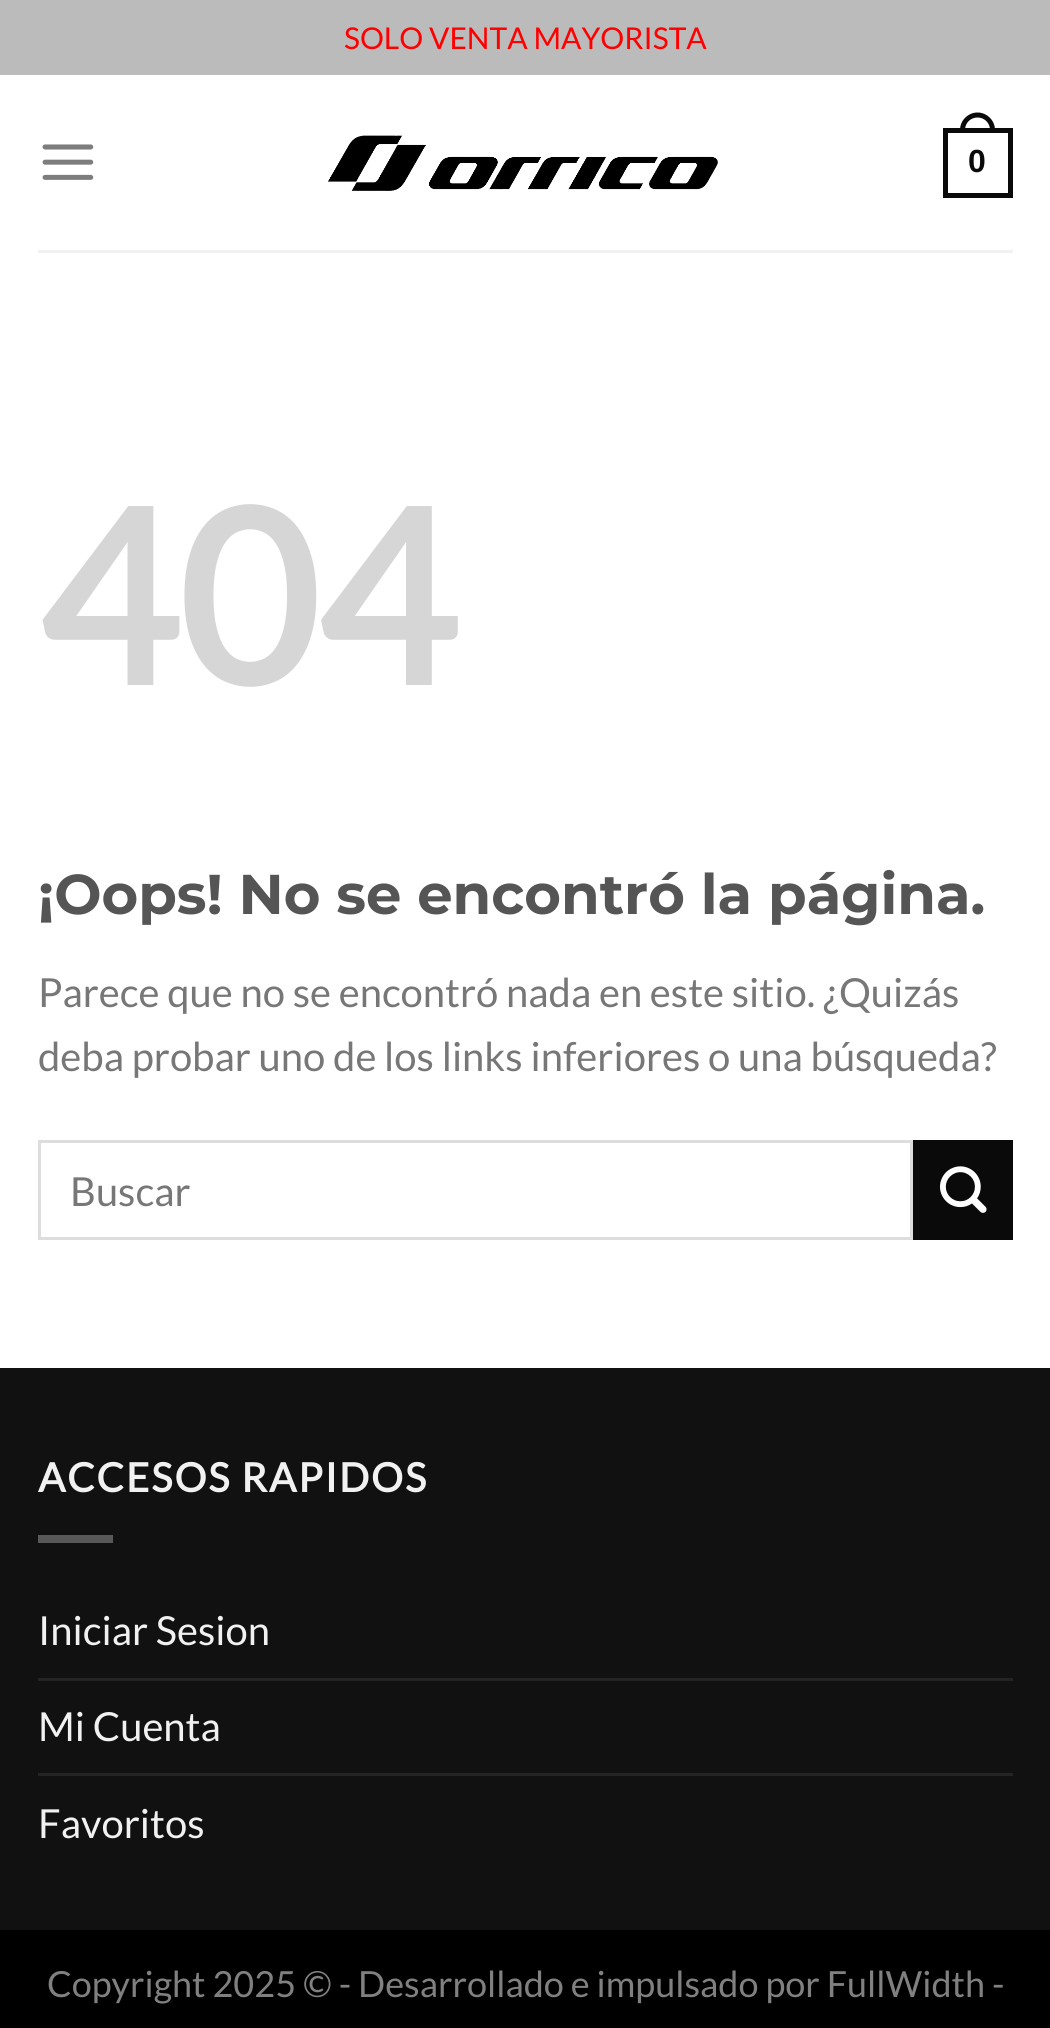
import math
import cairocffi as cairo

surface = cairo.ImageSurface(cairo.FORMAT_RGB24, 1050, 2028)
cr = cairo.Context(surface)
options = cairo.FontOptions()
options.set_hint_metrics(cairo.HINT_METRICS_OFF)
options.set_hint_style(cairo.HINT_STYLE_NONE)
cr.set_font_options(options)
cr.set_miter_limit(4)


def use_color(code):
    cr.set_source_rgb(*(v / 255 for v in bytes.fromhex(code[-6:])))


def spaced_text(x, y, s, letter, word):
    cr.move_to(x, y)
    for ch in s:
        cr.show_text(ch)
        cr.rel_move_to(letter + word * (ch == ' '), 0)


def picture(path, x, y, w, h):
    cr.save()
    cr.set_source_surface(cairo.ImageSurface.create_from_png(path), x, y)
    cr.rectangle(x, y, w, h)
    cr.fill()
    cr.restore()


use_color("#ffffff")
cr.paint()
use_color("#bbbbbb")
cr.rectangle(0, 0, 1050, 75)
cr.fill()
cr.select_font_face("Lato")
cr.set_font_size(30)
use_color("#ff0000")
cr.move_to(344, 49)
cr.show_text("SOLO VENTA MAYORISTA")
picture("img1.png", 42, 144, 52, 36)
picture("img2.png", 328, 135, 390, 56)
cr.rectangle(945.5, 130.5, 65, 65)
use_color("#0a0a0a")
cr.set_line_width(5)
cr.stroke()
cr.set_fill_rule(cairo.FILL_RULE_EVEN_ODD)
cr.new_path()
cr.move_to(977.5, 112.5)
cr.curve_to(987, 112.5, 995, 120.5, 995, 130)
cr.line_to(995, 132.5)
cr.line_to(960, 132.5)
cr.line_to(960, 130)
cr.curve_to(960, 120.5, 968, 112.5, 977.5, 112.5)
cr.close_path()
cr.move_to(977.5, 117.5)
cr.curve_to(984.5, 117.5, 990, 123, 990, 130)
cr.line_to(990, 132.5)
cr.line_to(965, 132.5)
cr.line_to(965, 130)
cr.curve_to(965, 123, 970.5, 117.5, 977.5, 117.5)
cr.close_path()
cr.fill()
cr.select_font_face("Liberation Sans", cairo.FONT_SLANT_NORMAL, cairo.FONT_WEIGHT_BOLD)
cr.set_font_size(32)
cr.move_to(968, 172)
cr.show_text("0")
use_color("#f1f1f1")
cr.rectangle(38, 250, 975, 3)
cr.fill()
cr.select_font_face("Lato", cairo.FONT_SLANT_NORMAL, cairo.FONT_WEIGHT_BOLD)
cr.set_font_size(240)
use_color("#d6d6d6")
cr.move_to(38, 685)
cr.show_text("404")
cr.select_font_face("Montserrat", cairo.FONT_SLANT_NORMAL, cairo.FONT_WEIGHT_BOLD)
cr.set_font_size(56)
use_color("#555555")
cr.move_to(38, 914)
cr.show_text("¡Oops! No se encontró la página.")
cr.select_font_face("Lato")
cr.set_font_size(40)
use_color("#777777")
cr.move_to(38, 1007)
cr.show_text("Parece que no se encontró nada en este sitio. ¿Quizás")
cr.move_to(38, 1071)
cr.show_text("deba probar uno de los links inferiores o una búsqueda?")
cr.rectangle(39.5, 1141.5, 872, 97)
use_color("#dddddd")
cr.set_line_width(3)
cr.stroke()
use_color("#777777")
cr.move_to(70, 1206)
cr.show_text("Buscar")
use_color("#0a0a0a")
cr.rectangle(913, 1140, 100, 100)
cr.fill()
picture("img3.png", 940, 1166, 47, 47)
use_color("#111111")
cr.rectangle(0, 1368, 1050, 562)
cr.fill()
cr.select_font_face("Lato", cairo.FONT_SLANT_NORMAL, cairo.FONT_WEIGHT_BOLD)
use_color("#f1f1f1")
spaced_text(38, 1492, "ACCESOS RAPIDOS", 2, 0)
use_color("#585858")
cr.rectangle(38, 1535, 75, 8)
cr.fill()
cr.select_font_face("Lato")
use_color("#f1f1f1")
cr.move_to(38, 1645)
cr.show_text("Iniciar Sesion")
use_color("#242424")
cr.rectangle(38, 1678, 975, 3)
cr.fill()
use_color("#f1f1f1")
cr.move_to(38, 1741)
cr.show_text("Mi Cuenta")
use_color("#242424")
cr.rectangle(38, 1773, 975, 3)
cr.fill()
use_color("#f1f1f1")
cr.move_to(38, 1838)
cr.show_text("Favoritos")
use_color("#000000")
cr.rectangle(0, 1930, 1050, 98)
cr.fill()
cr.set_font_size(36)
use_color("#808080")
cr.move_to(47, 1997)
cr.show_text("Copyright 2025 © - Desarrollado e impulsado por FullWidth -")
surface.write_to_png("result.png")
